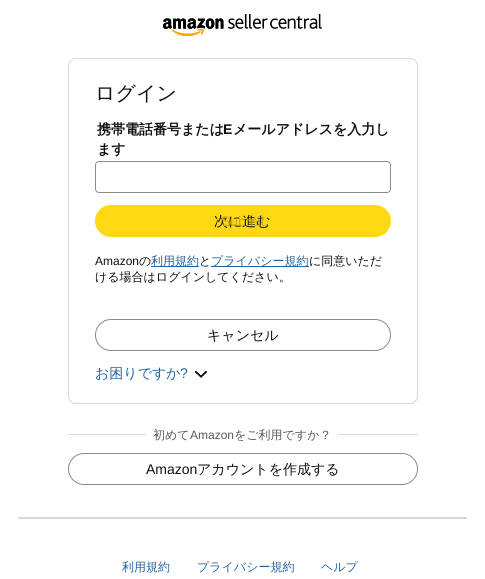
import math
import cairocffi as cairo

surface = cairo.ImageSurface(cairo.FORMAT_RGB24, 485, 579)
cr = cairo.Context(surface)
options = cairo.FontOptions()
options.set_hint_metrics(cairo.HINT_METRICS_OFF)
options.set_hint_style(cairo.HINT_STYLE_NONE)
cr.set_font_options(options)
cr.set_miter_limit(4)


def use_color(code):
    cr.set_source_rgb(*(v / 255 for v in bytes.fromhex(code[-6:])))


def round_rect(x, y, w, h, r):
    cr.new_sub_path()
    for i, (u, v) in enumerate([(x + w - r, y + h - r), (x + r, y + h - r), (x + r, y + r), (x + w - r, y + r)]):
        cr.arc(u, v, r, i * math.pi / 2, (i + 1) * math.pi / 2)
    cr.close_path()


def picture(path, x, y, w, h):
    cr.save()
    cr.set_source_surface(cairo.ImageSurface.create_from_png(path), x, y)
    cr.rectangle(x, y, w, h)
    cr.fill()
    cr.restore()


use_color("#ffffff")
cr.paint()
picture("img1.png", 163, 14, 159, 22)
round_rect(68.5, 58.5, 349, 345, 7.5)
use_color("#d5d9d9")
cr.set_line_width(1)
cr.stroke()
cr.select_font_face("WenQuanYi Zen Hei Medium")
cr.set_font_size(20)
use_color("#0f1111")
cr.move_to(95, 100)
cr.show_text("ログイン")
cr.select_font_face("WenQuanYi Zen Hei", cairo.FONT_SLANT_NORMAL, cairo.FONT_WEIGHT_BOLD)
cr.set_font_size(14)
cr.move_to(97, 134)
cr.show_text("携帯電話番号または")
cr.select_font_face("Liberation Sans", cairo.FONT_SLANT_NORMAL, cairo.FONT_WEIGHT_BOLD)
cr.move_to(223, 134)
cr.show_text("E")
cr.select_font_face("WenQuanYi Zen Hei", cairo.FONT_SLANT_NORMAL, cairo.FONT_WEIGHT_BOLD)
cr.move_to(233, 134)
cr.show_text("メールアドレスを入力し")
cr.move_to(97, 154)
cr.show_text("ます")
round_rect(95.5, 161.5, 295, 31, 3.5)
use_color("#888c8c")
cr.stroke()
use_color("#ffd814")
round_rect(95.5, 205.5, 295, 31, 15.5)
cr.fill_preserve()
cr.stroke()
cr.select_font_face("WenQuanYi Zen Hei Medium")
use_color("#0f1111")
cr.move_to(214, 226)
cr.show_text("次に進む")
cr.select_font_face("Liberation Sans")
use_color("#ccae13")
cr.move_to(221, 226)
cr.show_text("Submit")
cr.set_font_size(12)
use_color("#0f1111")
cr.move_to(95, 265)
cr.show_text("Amazon")
cr.select_font_face("WenQuanYi Zen Hei Medium")
cr.move_to(139, 265)
cr.show_text("の")
use_color("#2162a1")
cr.rectangle(151, 266, 48, 1)
cr.fill()
cr.move_to(151, 265)
cr.show_text("利用規約")
use_color("#0f1111")
cr.move_to(199, 265)
cr.show_text("と")
use_color("#2162a1")
cr.rectangle(211, 266, 98, 1)
cr.fill()
cr.move_to(211, 265)
cr.show_text("プライバシー規約")
use_color("#0f1111")
cr.move_to(309, 265)
cr.show_text("に同意いただ")
cr.move_to(95, 281)
cr.show_text("ける場合はログインしてください。")
round_rect(95.5, 319.5, 295, 31, 15.5)
use_color("#888c8c")
cr.stroke()
cr.set_font_size(14)
use_color("#0f1111")
cr.move_to(207, 340)
cr.show_text("キャンセル")
use_color("#2162a1")
cr.move_to(95, 378)
cr.show_text("お困りですか")
cr.select_font_face("Liberation Sans")
cr.move_to(180, 378)
cr.show_text("?")
picture("img2.png", 195, 371, 12, 7)
use_color("#d5d9d9")
cr.rectangle(68, 434, 350, 1)
cr.fill()
use_color("#ffffff")
cr.rectangle(146, 434, 193, 1)
cr.fill()
cr.select_font_face("WenQuanYi Zen Hei Medium")
cr.set_font_size(12)
use_color("#565959")
cr.move_to(153, 439)
cr.show_text("初めて")
cr.select_font_face("Liberation Sans")
cr.move_to(190, 439)
cr.show_text("Amazon")
cr.select_font_face("WenQuanYi Zen Hei Medium")
cr.move_to(234, 439)
cr.show_text("をご利用ですか？")
round_rect(68.5, 453.5, 349, 31, 15.5)
use_color("#888c8c")
cr.stroke()
cr.select_font_face("Liberation Sans")
cr.set_font_size(14)
use_color("#0f1111")
cr.move_to(146, 474)
cr.show_text("Amazon")
cr.select_font_face("WenQuanYi Zen Hei Medium")
cr.move_to(197, 474)
cr.show_text("アカウントを作成する")
use_color("#d5d9d9")
cr.rectangle(18, 517, 449, 2)
cr.fill()
cr.set_font_size(12)
use_color("#2162a1")
cr.move_to(122, 571)
cr.show_text("利用規約")
cr.move_to(197, 571)
cr.show_text("プライバシー規約")
cr.move_to(321, 571)
cr.show_text("ヘルプ")
surface.write_to_png("result.png")
